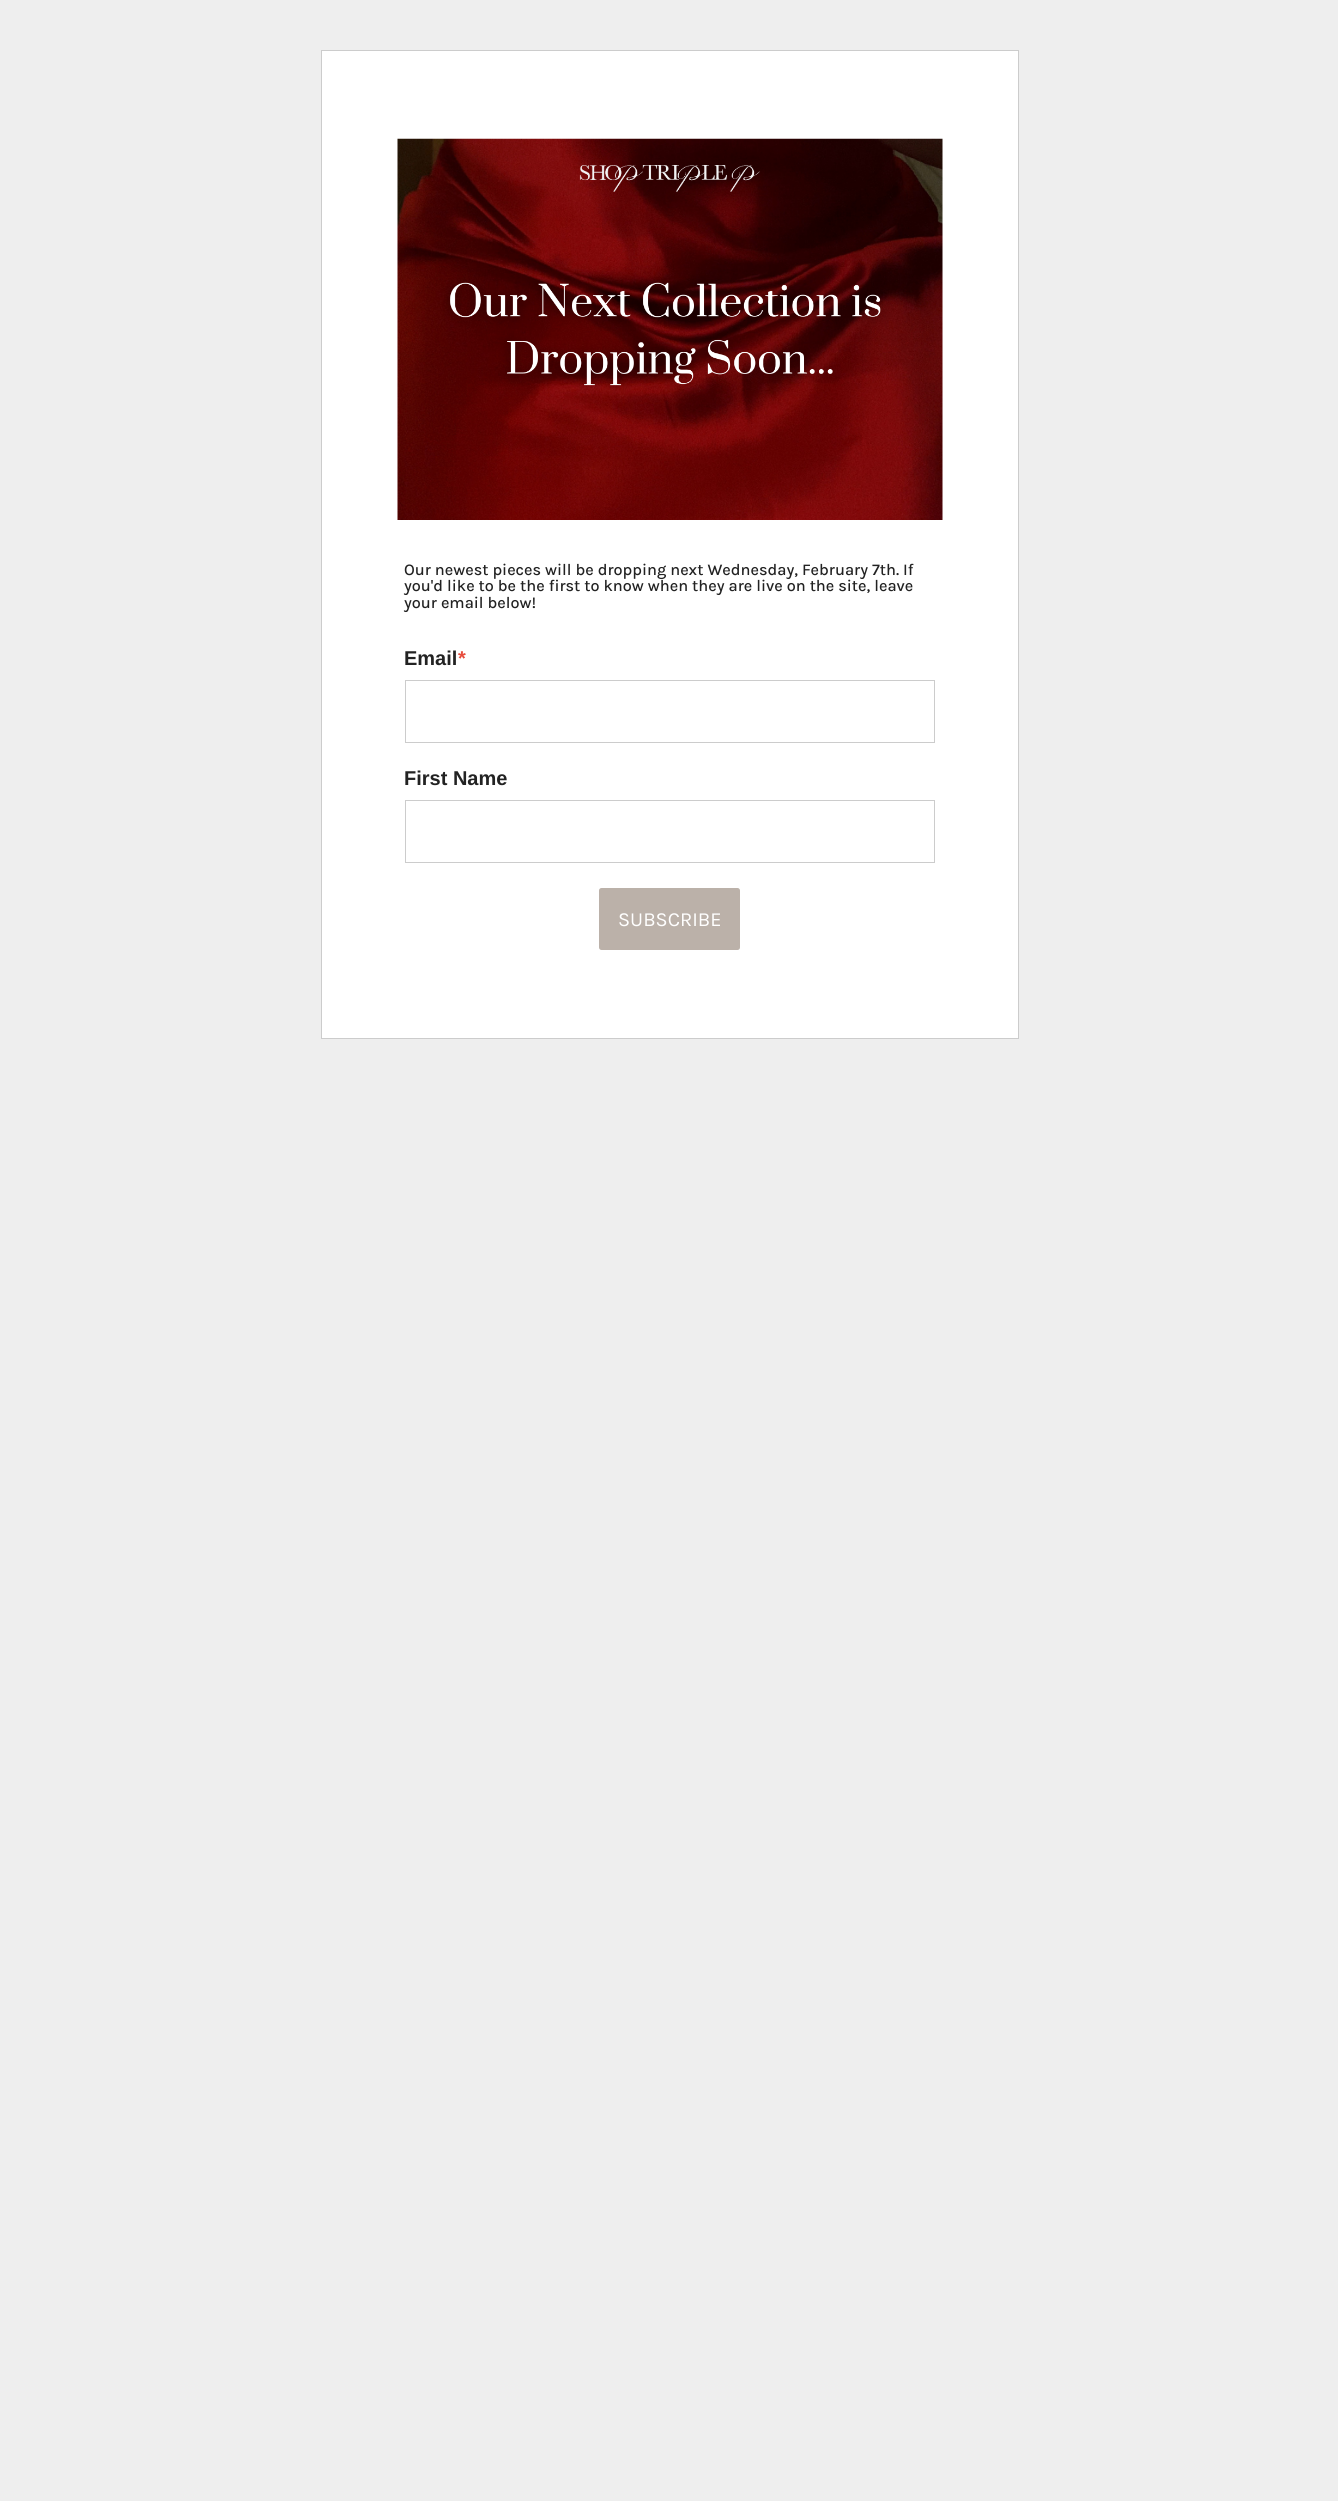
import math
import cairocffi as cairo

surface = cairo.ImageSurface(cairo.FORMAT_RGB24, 1338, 2501)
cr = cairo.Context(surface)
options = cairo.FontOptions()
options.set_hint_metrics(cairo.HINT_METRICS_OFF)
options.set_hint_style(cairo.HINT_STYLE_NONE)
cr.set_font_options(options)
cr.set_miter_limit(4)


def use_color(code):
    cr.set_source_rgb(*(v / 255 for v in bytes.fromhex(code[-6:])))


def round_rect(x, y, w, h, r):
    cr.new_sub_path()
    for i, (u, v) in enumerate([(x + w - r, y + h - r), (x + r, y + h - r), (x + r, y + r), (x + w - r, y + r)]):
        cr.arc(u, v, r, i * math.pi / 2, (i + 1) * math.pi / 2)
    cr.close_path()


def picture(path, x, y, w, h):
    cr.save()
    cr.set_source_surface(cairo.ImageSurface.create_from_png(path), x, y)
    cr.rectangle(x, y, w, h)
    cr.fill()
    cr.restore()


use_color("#eeeeee")
cr.paint()
use_color("#ffffff")
cr.rectangle(321.5, 50.5, 697, 988)
cr.fill_preserve()
use_color("#cccccc")
cr.set_line_width(1)
cr.stroke()
picture("img1.png", 397, 138, 546, 382)
cr.select_font_face("Karla Medium")
cr.set_font_size(16.25)
use_color("#222222")
cr.move_to(404, 575)
cr.show_text("Our newest pieces will be dropping next Wednesday, February 7th. If")
cr.move_to(404, 591)
cr.show_text("you'd like to be the first to know when they are live on the site, leave")
cr.move_to(404, 608)
cr.show_text("your email below!")
cr.select_font_face("Liberation Sans", cairo.FONT_SLANT_NORMAL, cairo.FONT_WEIGHT_BOLD)
cr.set_font_size(20)
cr.move_to(404, 665)
cr.show_text("Email")
use_color("#e74c3c")
cr.move_to(458, 665)
cr.show_text("*")
cr.rectangle(405.5, 680.5, 529, 62)
use_color("#cccccc")
cr.stroke()
use_color("#222222")
cr.move_to(404, 785)
cr.show_text("First Name")
cr.rectangle(405.5, 800.5, 529, 62)
use_color("#cccccc")
cr.stroke()
use_color("#bbb1a9")
round_rect(599, 888, 141, 62, 2.5)
cr.fill()
cr.select_font_face("Karla")
use_color("#ffffff")
cr.move_to(618, 926)
cr.show_text("SUBSCRIBE")
surface.write_to_png("result.png")
